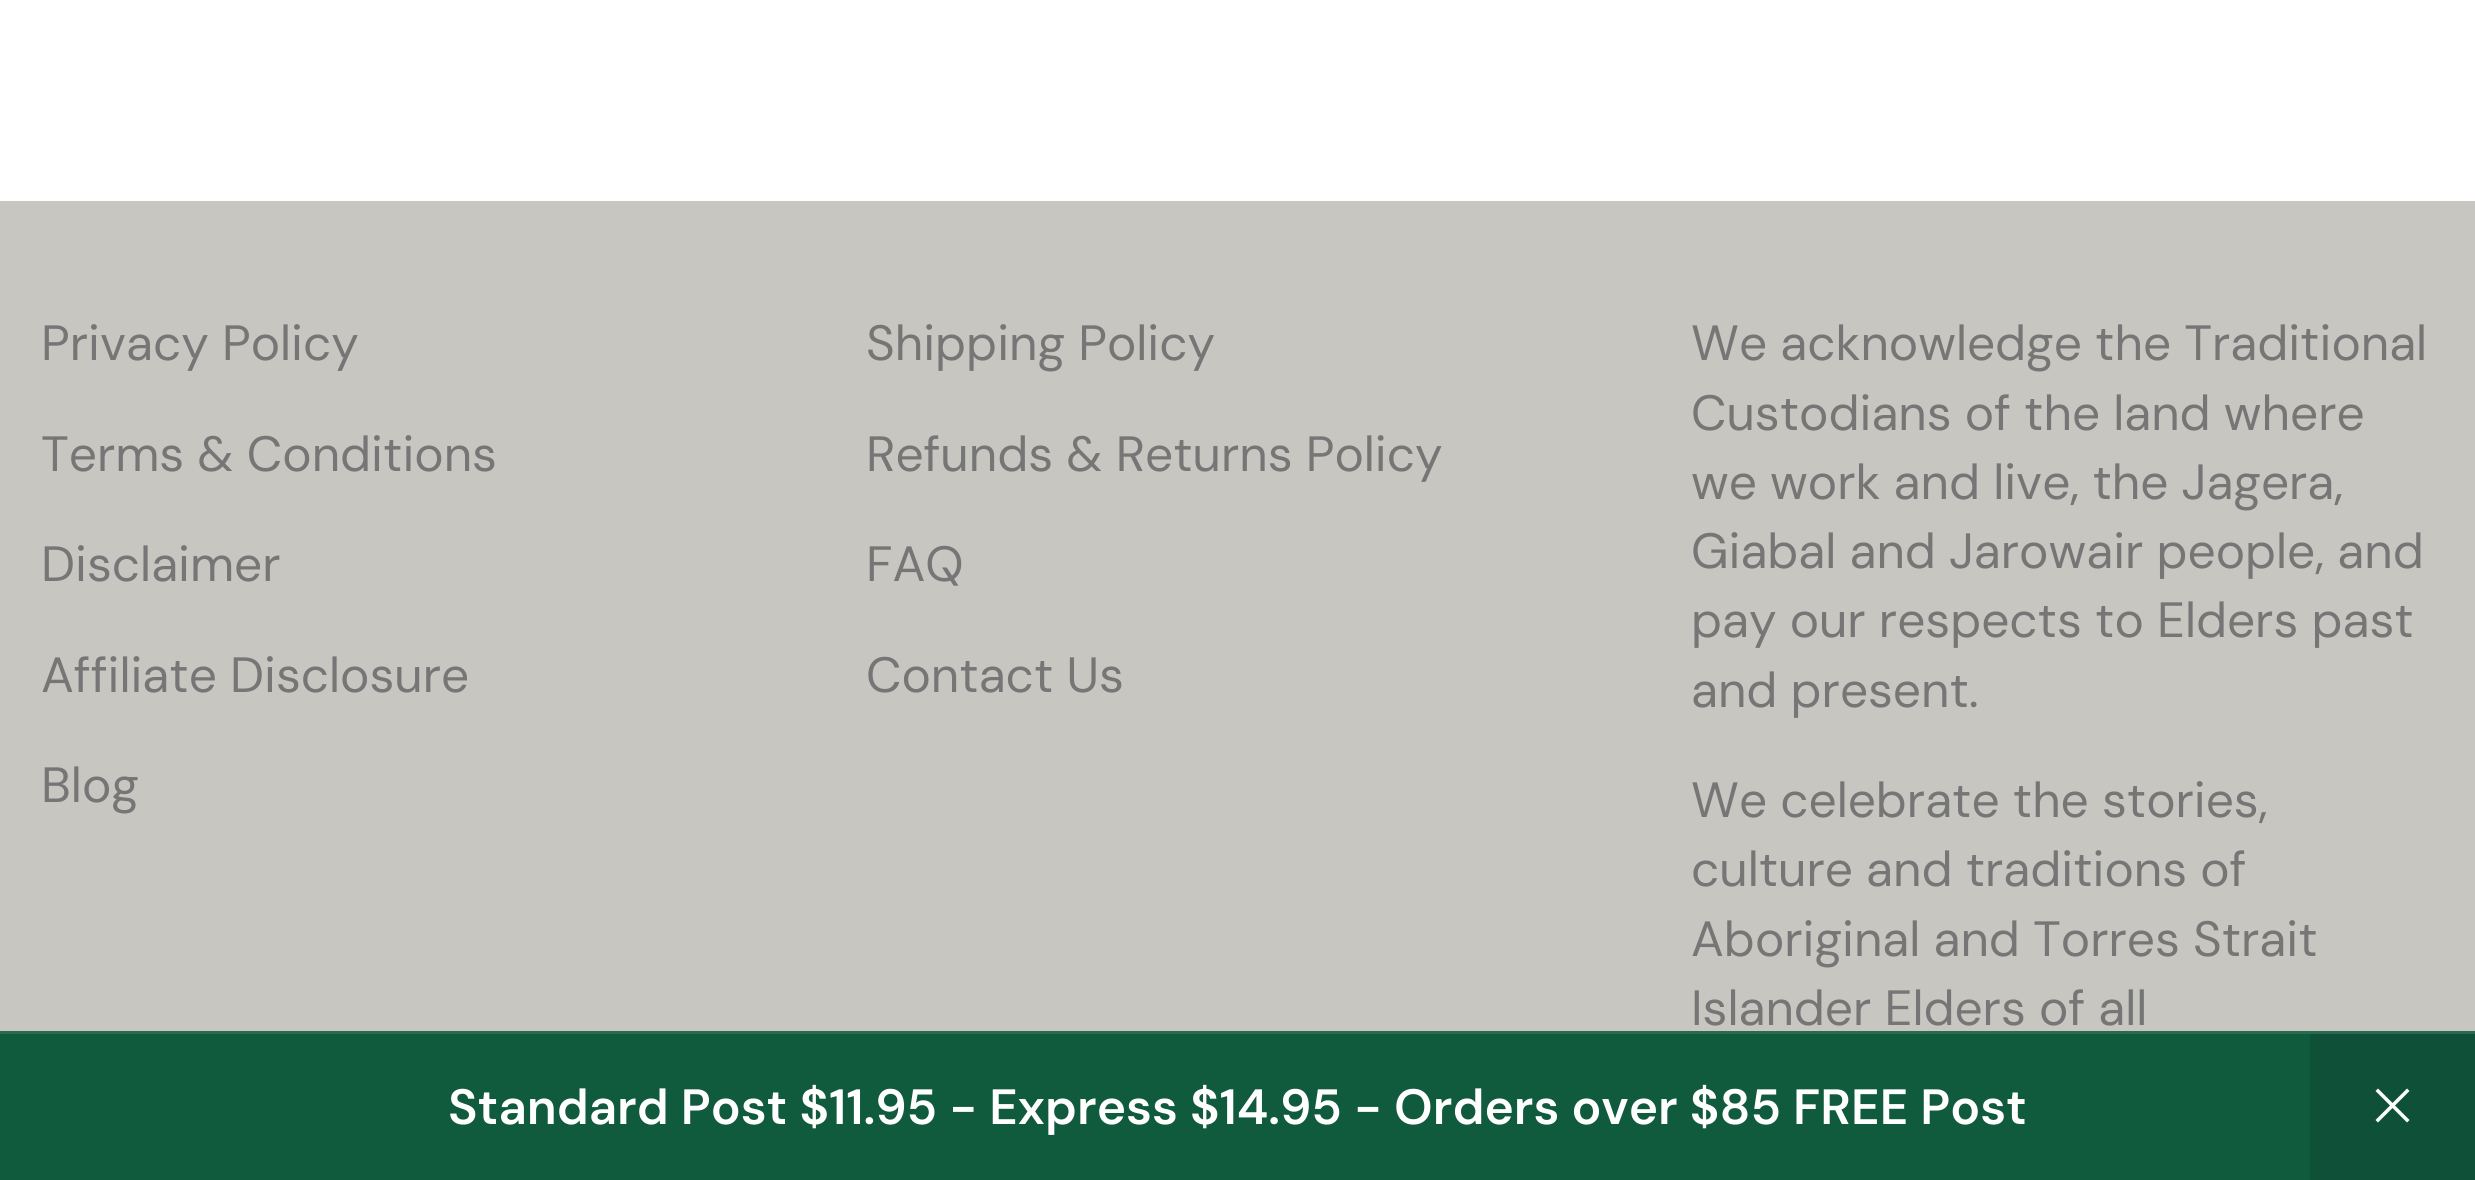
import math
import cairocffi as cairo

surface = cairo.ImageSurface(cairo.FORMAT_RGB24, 2475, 1180)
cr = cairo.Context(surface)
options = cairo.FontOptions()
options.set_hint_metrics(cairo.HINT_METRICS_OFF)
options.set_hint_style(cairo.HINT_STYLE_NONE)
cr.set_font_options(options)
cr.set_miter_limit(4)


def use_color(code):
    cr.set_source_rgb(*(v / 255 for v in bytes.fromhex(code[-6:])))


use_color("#ffffff")
cr.paint()
use_color("#c7c6c1")
cr.rectangle(0, 201, 2475, 830)
cr.fill()
cr.select_font_face("DM Sans")
cr.set_font_size(49.5)
use_color("#767676")
cr.move_to(41, 360)
cr.show_text("Privacy Policy")
cr.move_to(41, 471)
cr.show_text("Terms & Conditions")
cr.move_to(41, 581)
cr.show_text("Disclaimer")
cr.move_to(41, 692)
cr.show_text("Affiliate Disclosure")
cr.move_to(41, 802)
cr.show_text("Blog")
cr.move_to(866, 360)
cr.show_text("Shipping Policy")
cr.move_to(866, 471)
cr.show_text("Refunds & Returns Policy")
cr.move_to(866, 581)
cr.show_text("FAQ")
cr.move_to(866, 692)
cr.show_text("Contact Us")
cr.move_to(1691, 360)
cr.show_text("We acknowledge the Traditional")
cr.move_to(1691, 430)
cr.show_text("Custodians of the land where")
cr.move_to(1691, 499)
cr.show_text("we work and live, the Jagera,")
cr.move_to(1691, 568)
cr.show_text("Giabal and Jarowair people, and")
cr.move_to(1691, 637)
cr.show_text("pay our respects to Elders past")
cr.move_to(1691, 707)
cr.show_text("and present.")
cr.move_to(1691, 817)
cr.show_text("We celebrate the stories,")
cr.move_to(1691, 886)
cr.show_text("culture and traditions of")
cr.move_to(1691, 956)
cr.show_text("Aboriginal and Torres Strait")
cr.move_to(1691, 1025)
cr.show_text("Islander Elders of all")
use_color("#105a3e")
cr.rectangle(0, 1034, 2310, 146)
cr.fill()
use_color("#286b51")
cr.rectangle(0, 1031, 2475, 3)
cr.fill()
cr.select_font_face("DM Sans SemiBold")
use_color("#ffffff")
cr.move_to(448, 1124)
cr.show_text("Standard Post $11.95 - Express $14.95 - Orders over $85 FREE Post")
use_color("#0e5138")
cr.rectangle(2310, 1034, 165, 146)
cr.fill()
use_color("#ffffff")
cr.new_path()
cr.move_to(2375.5, 1091)
cr.line_to(2390, 1105.5)
cr.line_to(2375.5, 1120)
cr.line_to(2378, 1122.5)
cr.line_to(2392.5, 1108)
cr.line_to(2407, 1122.5)
cr.line_to(2409.5, 1120)
cr.line_to(2395, 1105.5)
cr.line_to(2409.5, 1091)
cr.line_to(2407, 1088.5)
cr.line_to(2392.5, 1103)
cr.line_to(2378, 1088.5)
cr.close_path()
cr.fill()
surface.write_to_png("result.png")
